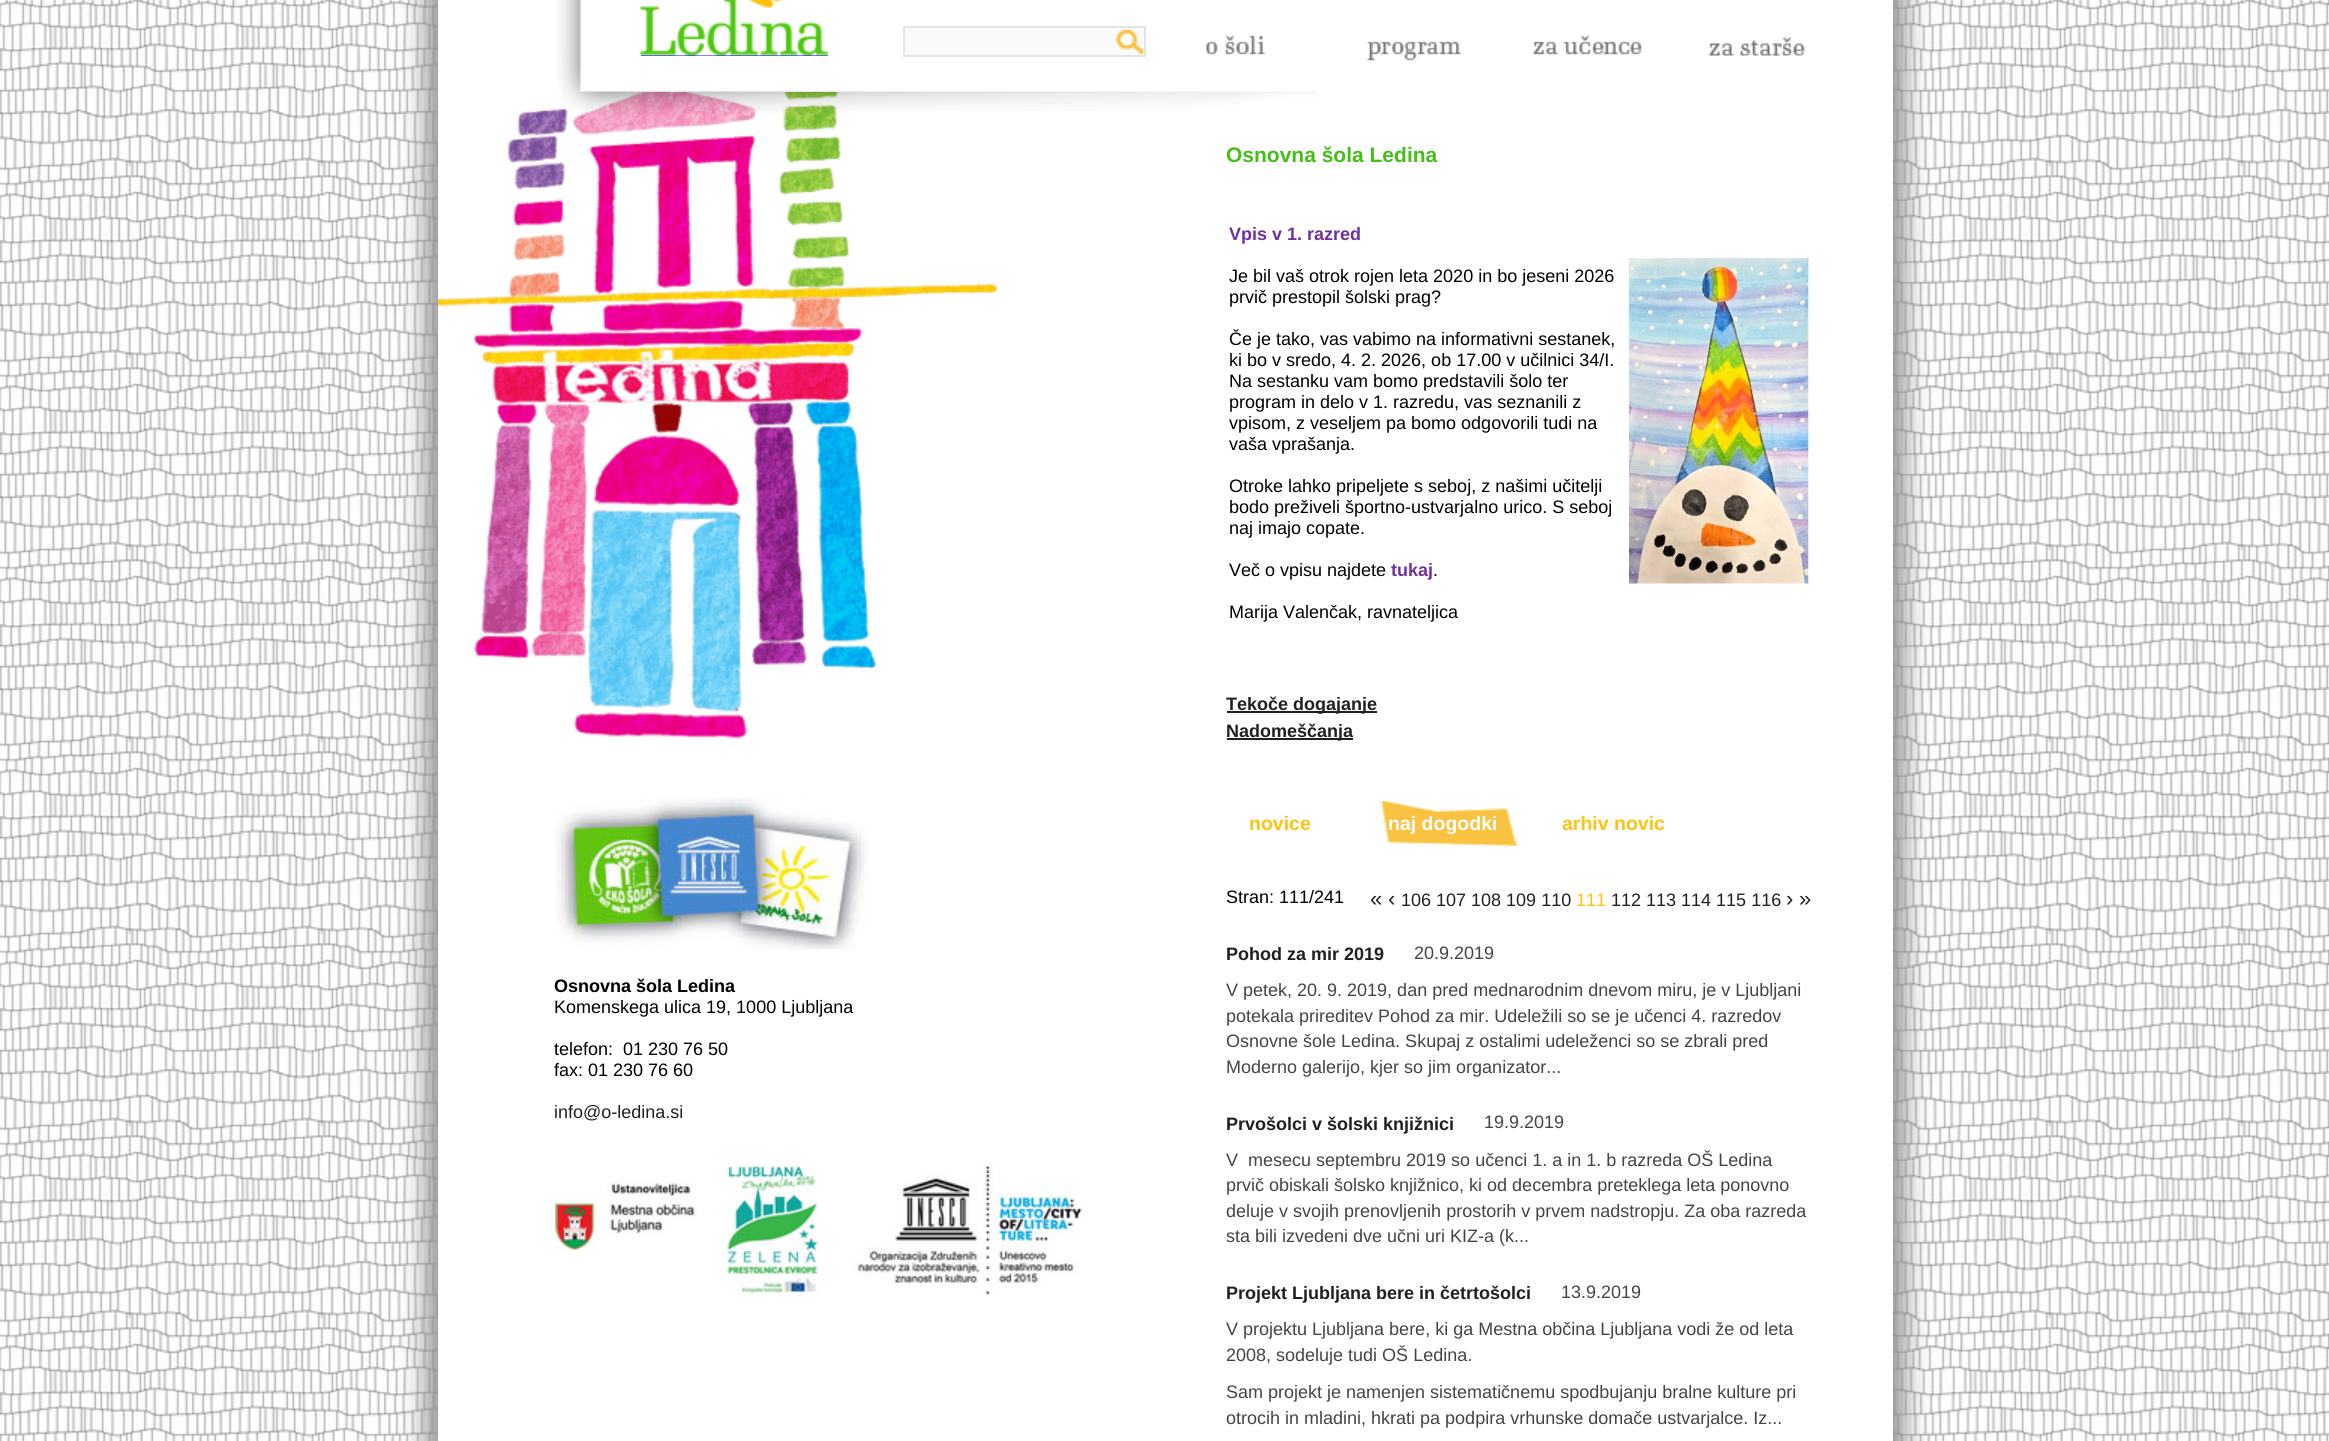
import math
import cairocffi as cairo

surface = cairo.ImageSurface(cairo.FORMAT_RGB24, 2329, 1441)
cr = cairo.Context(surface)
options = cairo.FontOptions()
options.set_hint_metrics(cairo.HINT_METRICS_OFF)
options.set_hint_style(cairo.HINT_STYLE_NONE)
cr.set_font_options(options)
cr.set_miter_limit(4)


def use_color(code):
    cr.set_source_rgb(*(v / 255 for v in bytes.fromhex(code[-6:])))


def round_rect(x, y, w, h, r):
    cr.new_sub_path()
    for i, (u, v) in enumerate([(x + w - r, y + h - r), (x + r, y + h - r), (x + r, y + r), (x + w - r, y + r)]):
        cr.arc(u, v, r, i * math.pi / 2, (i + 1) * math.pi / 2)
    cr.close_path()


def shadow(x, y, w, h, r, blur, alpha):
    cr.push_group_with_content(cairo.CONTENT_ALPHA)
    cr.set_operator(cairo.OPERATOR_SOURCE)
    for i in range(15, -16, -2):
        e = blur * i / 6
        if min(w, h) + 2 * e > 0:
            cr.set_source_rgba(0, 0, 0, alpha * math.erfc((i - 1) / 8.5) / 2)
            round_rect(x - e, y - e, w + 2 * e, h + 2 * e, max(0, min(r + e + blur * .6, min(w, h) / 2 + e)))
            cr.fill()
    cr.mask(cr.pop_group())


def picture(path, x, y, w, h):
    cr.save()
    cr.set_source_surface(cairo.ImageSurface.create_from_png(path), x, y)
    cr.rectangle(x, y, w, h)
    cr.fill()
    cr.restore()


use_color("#ffffff")
cr.paint()
picture("img1.png", 0, 0, 2329, 1441)
use_color("#939393")
shadow(426, -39, 1479, 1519, 0, 13, 1)
use_color("#ffffff")
cr.rectangle(438, 0, 1455, 1441)
cr.fill()
picture("img2.png", 438, 73, 560, 666)
cr.rectangle(640, 73, 200, 19)
cr.fill()
picture("img11.png", 580, 91, 271, 23)
picture("img3.png", 557, 0, 24, 92)
use_color("#0000ff")
cr.rectangle(641, 55, 187, 1)
cr.fill()
picture("img4.png", 640, 0, 188, 56)
use_color("#fafafa")
cr.rectangle(904, 27, 241, 29)
cr.fill_preserve()
use_color("#e3e4e4")
cr.stroke()
picture("img5.png", 1116, 30, 29, 24)
picture("img12.png", 850, 91, 468, 20)
picture("img6.png", 1175, 35, 91, 57)
picture("img7.png", 1366, 41, 96, 20)
picture("img8.png", 1532, 35, 110, 20)
picture("img9.png", 1708, 37, 97, 19)
picture("img10.png", 561, 91, 20, 19)
picture("img13.png", 555, 797, 313, 153)
cr.select_font_face("Liberation Sans", cairo.FONT_SLANT_NORMAL, cairo.FONT_WEIGHT_BOLD)
cr.set_font_size(18)
use_color("#000000")
cr.move_to(554, 992)
cr.show_text("Osnovna šola Ledina")
cr.select_font_face("Liberation Sans")
cr.move_to(554, 1013)
cr.show_text("Komenskega ulica 19, 1000 Ljubljana")
cr.move_to(554, 1055)
cr.show_text("telefon:")
cr.move_to(623, 1055)
cr.show_text("01 230 76 50")
cr.move_to(554, 1076)
cr.show_text("fax: 01 230 76 60")
use_color("#231f20")
cr.move_to(554, 1118)
cr.show_text("info@o-ledina.si")
picture("img14.png", 555, 1164, 528, 131)
cr.select_font_face("Liberation Sans", cairo.FONT_SLANT_NORMAL, cairo.FONT_WEIGHT_BOLD)
cr.set_font_size(21)
use_color("#45be19")
cr.move_to(1226, 162)
cr.show_text("Osnovna šola Ledina")
cr.set_font_size(18)
use_color("#7030a0")
cr.move_to(1229, 240)
cr.show_text("Vpis v 1. razred")
cr.select_font_face("Liberation Sans")
use_color("#000000")
cr.move_to(1229, 282)
cr.show_text("Je bil vaš otrok rojen leta 2020 in bo jeseni 2026")
cr.move_to(1229, 303)
cr.show_text("prvič prestopil šolski prag?")
cr.move_to(1229, 345)
cr.show_text("Če je tako, vas vabimo na informativni sestanek,")
cr.move_to(1229, 366)
cr.show_text("ki bo v sredo, 4. 2. 2026, ob 17.00 v učilnici 34/I.")
cr.move_to(1229, 387)
cr.show_text("Na sestanku vam bomo predstavili šolo ter")
cr.move_to(1229, 408)
cr.show_text("program in delo v 1. razredu, vas seznanili z")
cr.move_to(1229, 429)
cr.show_text("vpisom, z veseljem pa bomo odgovorili tudi na")
cr.move_to(1229, 450)
cr.show_text("vaša vprašanja.")
cr.move_to(1229, 492)
cr.show_text("Otroke lahko pripeljete s seboj, z našimi učitelji")
cr.move_to(1229, 513)
cr.show_text("bodo preživeli športno-ustvarjalno urico. S seboj")
cr.move_to(1229, 534)
cr.show_text("naj imajo copate.")
cr.move_to(1229, 576)
cr.show_text("Več o vpisu najdete")
cr.select_font_face("Liberation Sans", cairo.FONT_SLANT_NORMAL, cairo.FONT_WEIGHT_BOLD)
use_color("#7030a0")
cr.move_to(1391, 576)
cr.show_text("tukaj")
cr.select_font_face("Liberation Sans")
use_color("#000000")
cr.move_to(1433, 576)
cr.show_text(".")
cr.move_to(1229, 618)
cr.show_text("Marija Valenčak, ravnateljica")
picture("img15.png", 1629, 258, 180, 326)
use_color("#231f20")
cr.rectangle(1227, 711, 150, 2)
cr.fill()
cr.select_font_face("Liberation Sans", cairo.FONT_SLANT_NORMAL, cairo.FONT_WEIGHT_BOLD)
cr.move_to(1226, 710)
cr.show_text("Tekoče dogajanje")
cr.rectangle(1227, 738, 126, 2)
cr.fill()
cr.move_to(1226, 737)
cr.show_text("Nadomeščanja")
cr.set_font_size(19.5)
use_color("#ffc20e")
cr.move_to(1249, 830)
cr.show_text("novice")
picture("img16.png", 1381, 801, 136, 45)
use_color("#ffffff")
cr.move_to(1388, 830)
cr.show_text("naj dogodki")
use_color("#ffc20e")
cr.move_to(1562, 830)
cr.show_text("arhiv novic")
cr.select_font_face("Liberation Sans")
cr.set_font_size(18)
use_color("#000000")
cr.move_to(1226, 903)
cr.show_text("Stran: 111/241")
cr.set_font_size(22)
use_color("#231f20")
cr.move_to(1370, 906)
cr.show_text("«")
cr.move_to(1388, 906)
cr.show_text("‹")
cr.set_font_size(18)
cr.move_to(1401, 906)
cr.show_text("106 107 108 109 110")
use_color("#ffc20e")
cr.move_to(1576, 906)
cr.show_text("111")
use_color("#231f20")
cr.move_to(1611, 906)
cr.show_text("112 113 114 115 116")
cr.set_font_size(22)
cr.move_to(1786, 906)
cr.show_text("›")
cr.move_to(1799, 906)
cr.show_text("»")
cr.select_font_face("Liberation Sans", cairo.FONT_SLANT_NORMAL, cairo.FONT_WEIGHT_BOLD)
cr.set_font_size(18)
cr.move_to(1226, 960)
cr.show_text("Pohod za mir 2019")
cr.select_font_face("Liberation Sans")
use_color("#444444")
cr.move_to(1414, 959)
cr.show_text("20.9.2019")
cr.move_to(1226, 996)
cr.show_text("V petek, 20. 9. 2019, dan pred mednarodnim dnevom miru, je v Ljubljani")
cr.move_to(1226, 1022)
cr.show_text("potekala prireditev Pohod za mir. Udeležili so se je učenci 4. razredov")
cr.move_to(1226, 1047)
cr.show_text("Osnovne šole Ledina. Skupaj z ostalimi udeleženci so se zbrali pred")
cr.move_to(1226, 1073)
cr.show_text("Moderno galerijo, kjer so jim organizator...")
cr.select_font_face("Liberation Sans", cairo.FONT_SLANT_NORMAL, cairo.FONT_WEIGHT_BOLD)
use_color("#231f20")
cr.move_to(1226, 1130)
cr.show_text("Prvošolci v šolski knjižnici")
cr.select_font_face("Liberation Sans")
use_color("#444444")
cr.move_to(1484, 1128)
cr.show_text("19.9.2019")
cr.move_to(1226, 1166)
cr.show_text("V  mesecu septembru 2019 so učenci 1. a in 1. b razreda OŠ Ledina")
cr.move_to(1226, 1191)
cr.show_text("prvič obiskali šolsko knjižnico, ki od decembra preteklega leta ponovno")
cr.move_to(1226, 1217)
cr.show_text("deluje v svojih prenovljenih prostorih v prvem nadstropju. Za oba razreda")
cr.move_to(1226, 1242)
cr.show_text("sta bili izvedeni dve učni uri KIZ-a (k...")
cr.select_font_face("Liberation Sans", cairo.FONT_SLANT_NORMAL, cairo.FONT_WEIGHT_BOLD)
use_color("#231f20")
cr.move_to(1226, 1299)
cr.show_text("Projekt Ljubljana bere in četrtošolci")
cr.select_font_face("Liberation Sans")
use_color("#444444")
cr.move_to(1561, 1298)
cr.show_text("13.9.2019")
cr.move_to(1226, 1335)
cr.show_text("V projektu Ljubljana bere, ki ga Mestna občina Ljubljana vodi že od leta")
cr.move_to(1226, 1361)
cr.show_text("2008, sodeluje tudi OŠ Ledina.")
cr.move_to(1226, 1398)
cr.show_text("Sam projekt je namenjen sistematičnemu spodbujanju bralne kulture pri")
cr.move_to(1226, 1424)
cr.show_text("otrocih in mladini, hkrati pa podpira vrhunske domače ustvarjalce. Iz...")
surface.write_to_png("result.png")
